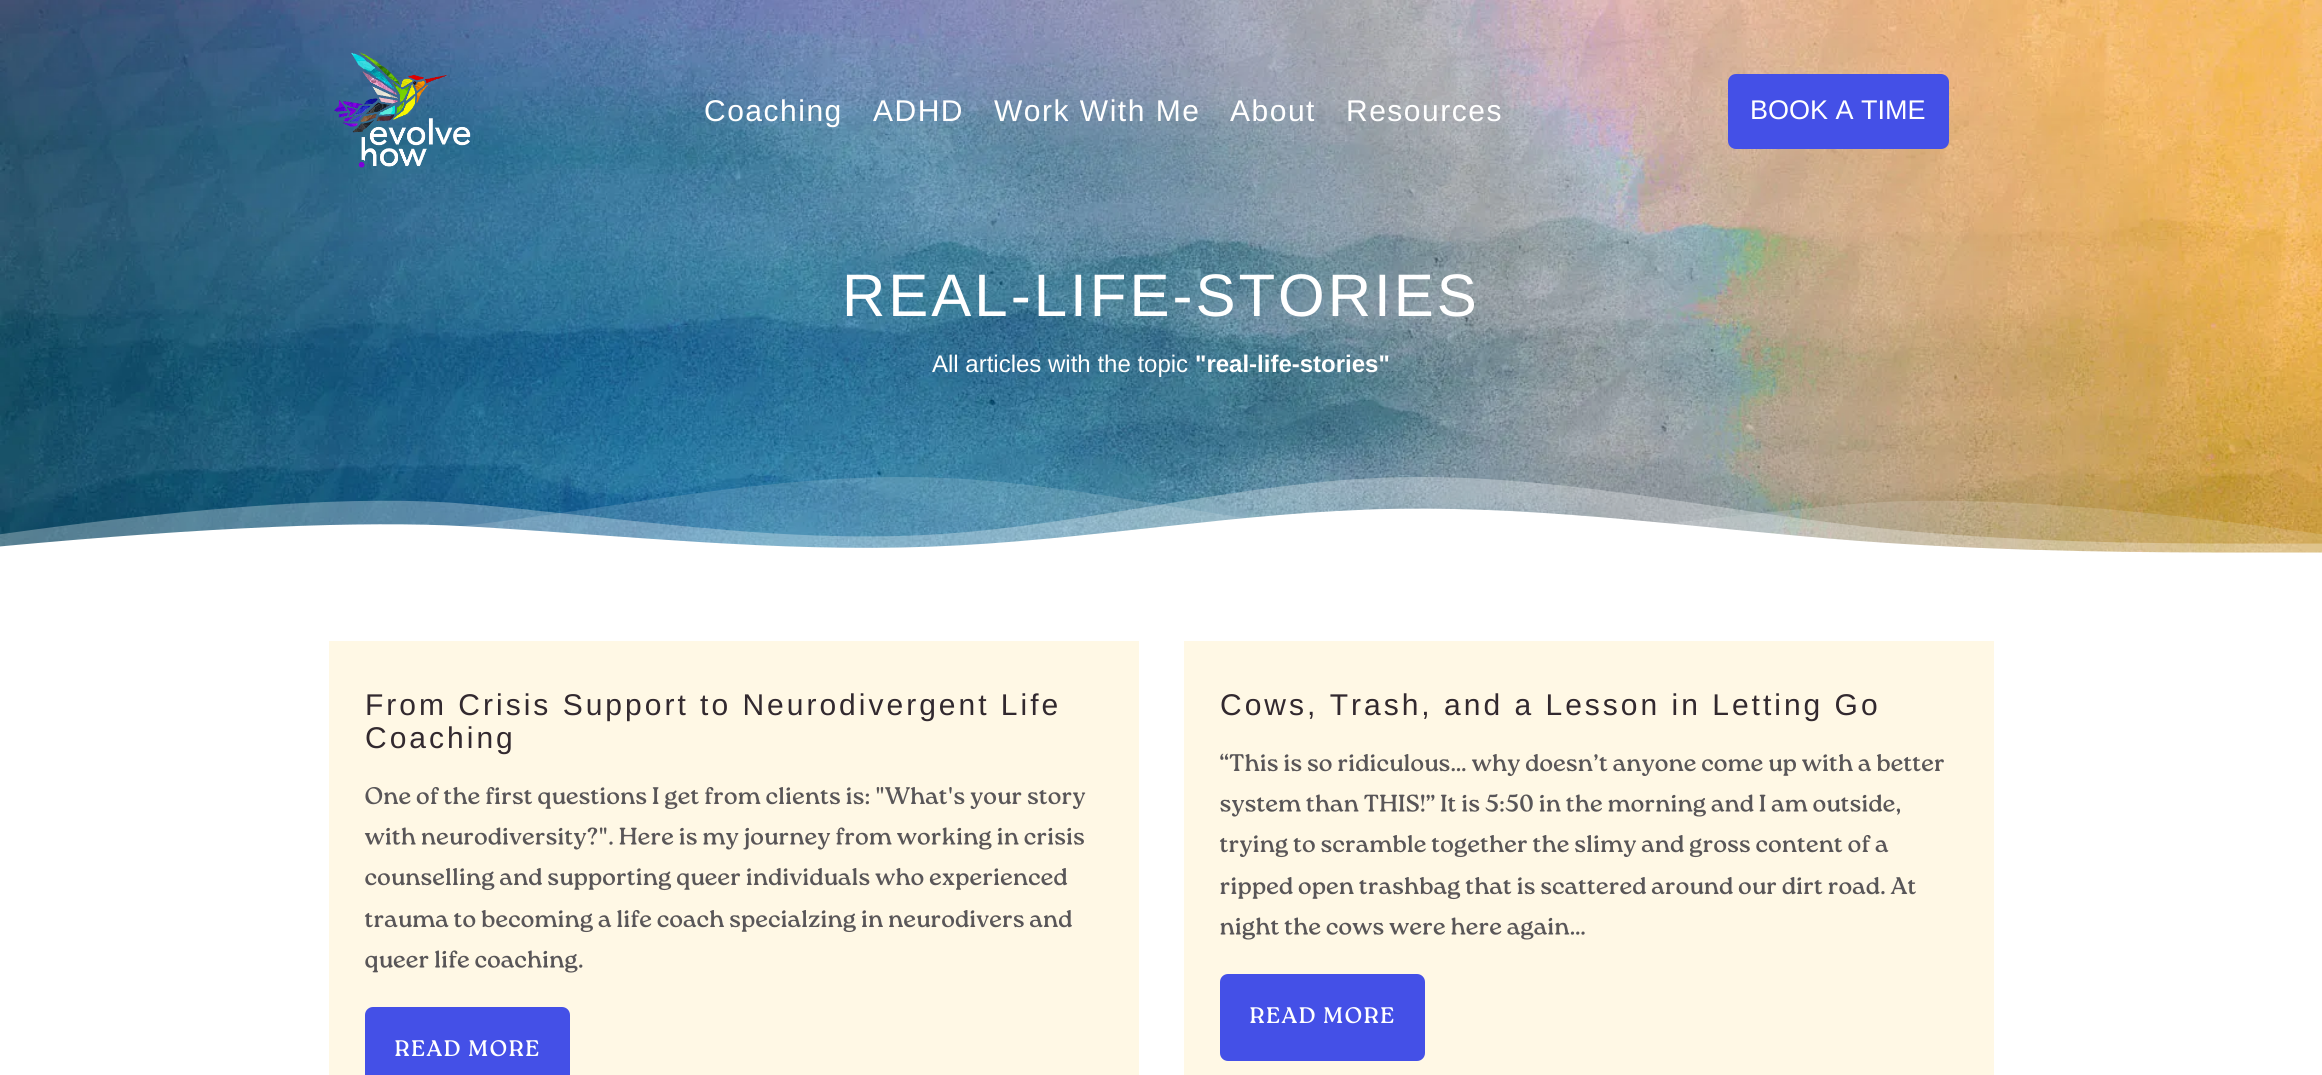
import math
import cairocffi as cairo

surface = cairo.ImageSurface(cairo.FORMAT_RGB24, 2322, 1075)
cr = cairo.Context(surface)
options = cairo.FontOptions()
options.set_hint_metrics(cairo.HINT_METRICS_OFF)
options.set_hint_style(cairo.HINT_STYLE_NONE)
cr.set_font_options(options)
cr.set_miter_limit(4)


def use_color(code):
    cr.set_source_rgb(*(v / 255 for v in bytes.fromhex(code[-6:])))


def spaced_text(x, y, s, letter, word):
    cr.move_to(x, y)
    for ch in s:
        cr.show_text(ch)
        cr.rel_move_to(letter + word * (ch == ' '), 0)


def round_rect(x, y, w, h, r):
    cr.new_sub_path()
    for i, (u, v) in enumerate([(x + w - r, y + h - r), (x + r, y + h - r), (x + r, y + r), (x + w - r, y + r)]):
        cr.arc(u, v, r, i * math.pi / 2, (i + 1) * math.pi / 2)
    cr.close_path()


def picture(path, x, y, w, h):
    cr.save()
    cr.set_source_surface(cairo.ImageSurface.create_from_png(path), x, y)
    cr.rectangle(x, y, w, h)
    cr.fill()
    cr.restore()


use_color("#ffffff")
cr.paint()
picture("img1.png", 0, 0, 2322, 553)
picture("img2.png", 334, 50, 137, 118)
cr.select_font_face("Liberation Sans")
cr.set_font_size(30)
use_color("#ffffff")
spaced_text(704, 121, "Coaching", 1.5, 0)
spaced_text(873, 121, "ADHD", 1.5, 0)
spaced_text(994, 121, "Work With Me", 1.5, 0)
spaced_text(1230, 121, "About", 1.5, 0)
spaced_text(1346, 121, "Resources", 1.5, 0)
use_color("#4450e7")
round_rect(1728, 74, 221, 75, 8)
cr.fill()
cr.set_font_size(27)
use_color("#ffffff")
cr.move_to(1750, 119)
cr.show_text("BOOK A TIME")
cr.set_font_size(60)
spaced_text(842, 316, "REAL-LIFE-STORIES", 3, 0)
cr.set_font_size(24)
cr.move_to(932, 372)
cr.show_text("All articles with the topic")
cr.select_font_face("Liberation Sans", cairo.FONT_SLANT_NORMAL, cairo.FONT_WEIGHT_BOLD)
cr.move_to(1195, 372)
cr.show_text("\"real-life-stories\"")
picture("img3.png", 0, 477, 2322, 93)
use_color("#fff8e5")
cr.rectangle(329, 641, 810, 434)
cr.fill()
cr.select_font_face("Liberation Sans")
cr.set_font_size(30)
use_color("#32292f")
spaced_text(365, 715, "From Crisis Support to Neurodivergent Life", 3, 0)
spaced_text(365, 748, "Coaching", 3, 0)
picture("img4.png", 365, 787, 721, 23)
picture("img5.png", 364, 827, 720, 23)
picture("img6.png", 365, 868, 703, 23)
picture("img7.png", 364, 910, 708, 23)
picture("img8.png", 365, 950, 218, 23)
use_color("#4450e7")
round_rect(365, 1007, 205, 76, 8)
cr.fill()
picture("img9.png", 395, 1040, 144, 17)
use_color("#fff8e5")
cr.rectangle(1184, 641, 810, 434)
cr.fill()
use_color("#32292f")
spaced_text(1220, 715, "Cows, Trash, and a Lesson in Letting Go", 3, 0)
picture("img10.png", 1220, 753, 724, 23)
picture("img11.png", 1220, 794, 681, 23)
picture("img12.png", 1219, 835, 670, 23)
picture("img13.png", 1220, 877, 696, 23)
picture("img14.png", 1220, 917, 365, 23)
use_color("#4450e7")
round_rect(1220, 974, 205, 87, 8)
cr.fill()
picture("img9.png", 1250, 1007, 144, 17)
surface.write_to_png("result.png")
